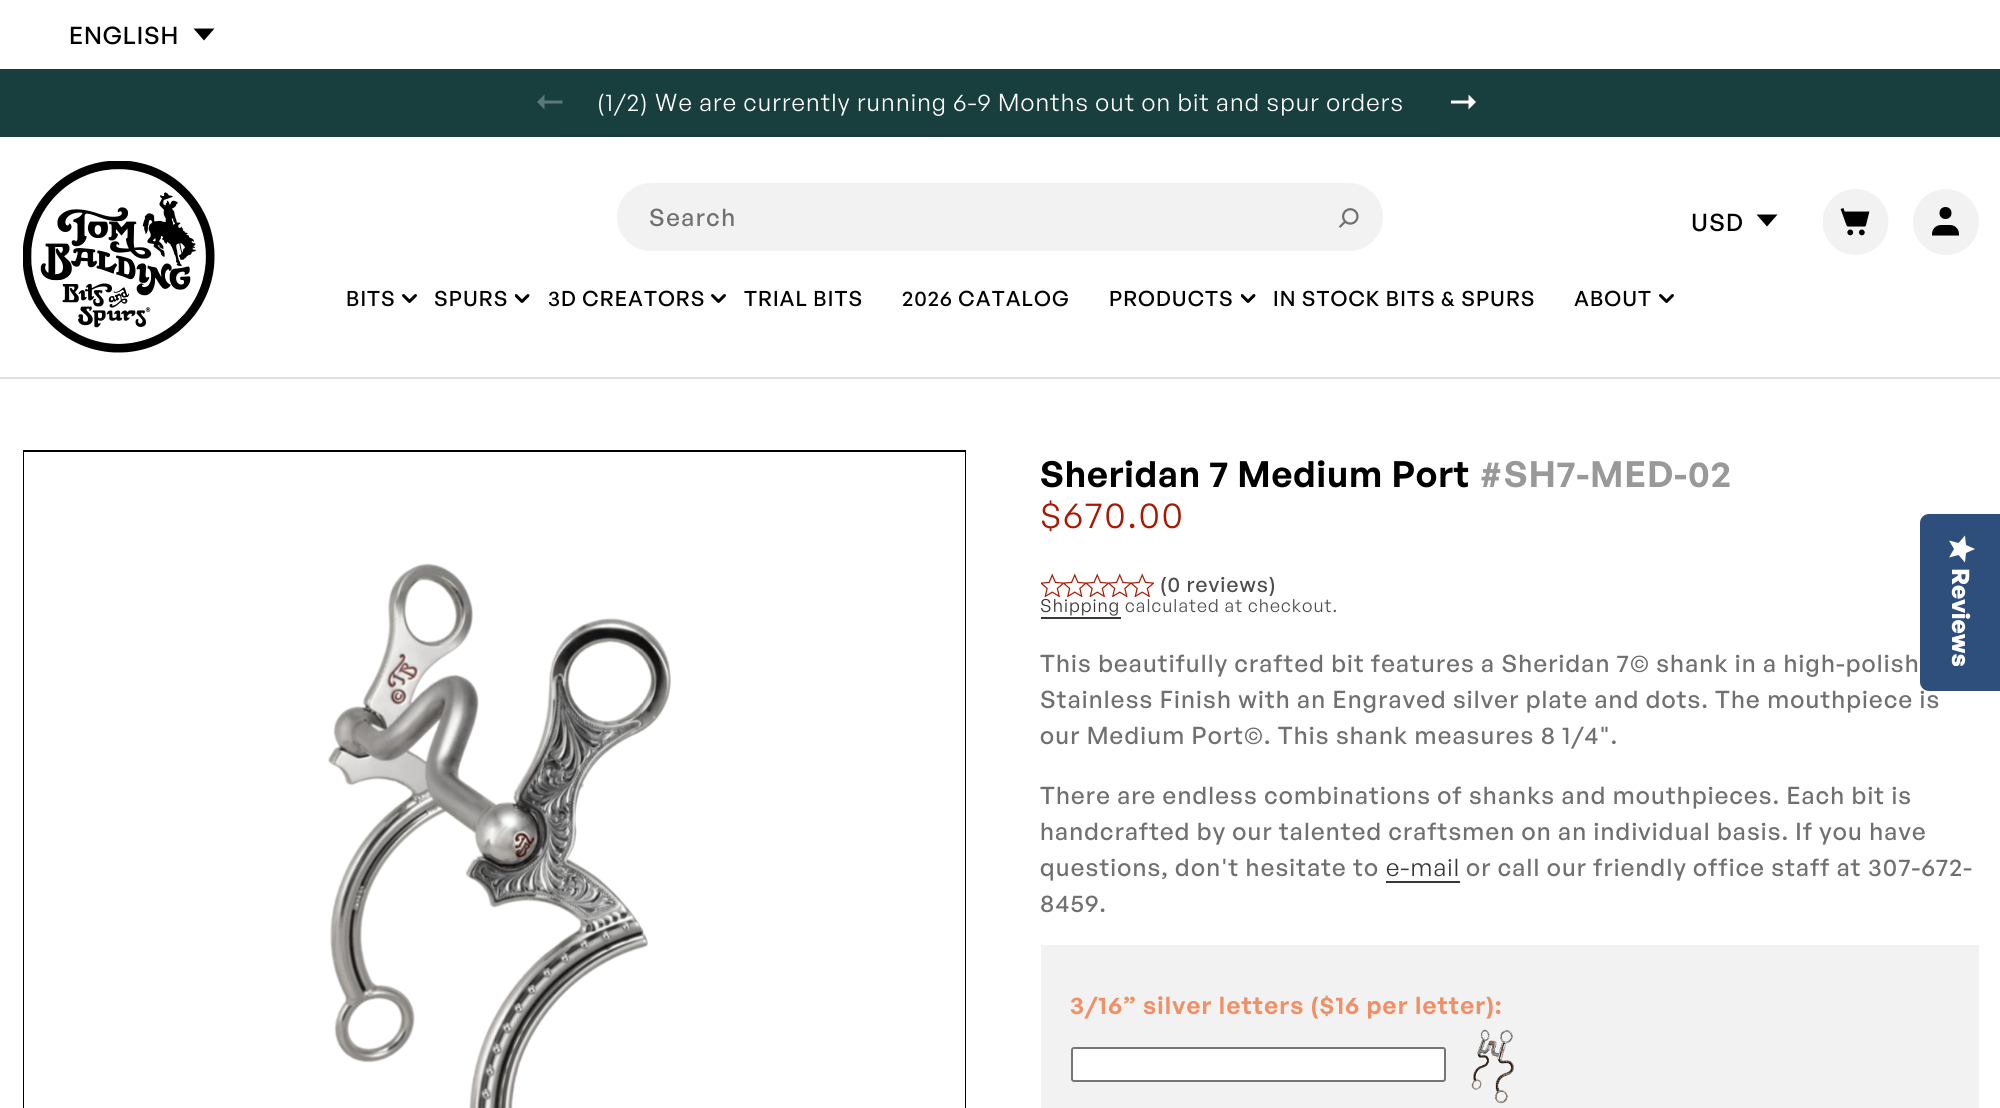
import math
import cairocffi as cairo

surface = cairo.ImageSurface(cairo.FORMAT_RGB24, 2000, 1108)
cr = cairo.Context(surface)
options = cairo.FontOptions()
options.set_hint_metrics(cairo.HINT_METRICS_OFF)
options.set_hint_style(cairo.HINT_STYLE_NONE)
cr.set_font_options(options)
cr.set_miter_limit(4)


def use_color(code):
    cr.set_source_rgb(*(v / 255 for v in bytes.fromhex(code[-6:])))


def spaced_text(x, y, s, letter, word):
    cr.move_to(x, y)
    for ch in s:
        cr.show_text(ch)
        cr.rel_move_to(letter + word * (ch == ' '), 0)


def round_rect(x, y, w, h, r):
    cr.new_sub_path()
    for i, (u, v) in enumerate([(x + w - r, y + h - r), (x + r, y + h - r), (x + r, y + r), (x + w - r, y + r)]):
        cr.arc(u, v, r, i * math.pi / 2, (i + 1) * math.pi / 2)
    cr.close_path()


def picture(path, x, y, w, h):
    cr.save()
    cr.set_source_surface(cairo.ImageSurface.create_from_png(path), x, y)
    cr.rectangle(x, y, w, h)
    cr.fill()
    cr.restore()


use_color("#ffffff")
cr.paint()
cr.select_font_face("General Sans Medium")
cr.set_font_size(24)
use_color("#000000")
spaced_text(69, 44, "ENGLISH", 0.9, 0)
cr.new_path()
cr.move_to(193.5, 28.5)
cr.line_to(214.5, 28.5)
cr.line_to(204, 40.5)
cr.close_path()
cr.fill()
use_color("#183f3d")
cr.rectangle(0, 69, 2000, 68)
cr.fill()
use_color("#5d7977")
cr.new_path()
cr.move_to(537, 102)
cr.line_to(544.5, 94.5)
cr.line_to(544.5, 100.5)
cr.line_to(562.5, 100.5)
cr.line_to(562.5, 103.5)
cr.line_to(544.5, 103.5)
cr.line_to(544.5, 109.5)
cr.close_path()
cr.fill()
use_color("#183b3a")
cr.rectangle(561, 135, 879, 2)
cr.fill()
cr.select_font_face("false")
use_color("#ffffff")
spaced_text(597, 111, "(1/2) We are currently running 6-9 Months out on bit and spur orders", 1.2, 0)
cr.save()
cr.rectangle(1451, 95, 25, 15)
cr.clip()
cr.new_path()
cr.move_to(1476, 102)
cr.line_to(1468.5, 94.5)
cr.line_to(1468.5, 100.5)
cr.line_to(1450.5, 100.5)
cr.line_to(1450.5, 103.5)
cr.line_to(1468.5, 103.5)
cr.line_to(1468.5, 109.5)
cr.close_path()
cr.fill()
cr.restore()
use_color("#e0e0e0")
cr.rectangle(0, 377, 2000, 2)
cr.fill()
picture("img1.png", 23, 161, 192, 192)
use_color("#f2f2f2")
round_rect(617, 183, 766, 68, 34)
cr.fill()
cr.select_font_face("General Sans Medium")
use_color("#707070")
spaced_text(649, 226, "Search", 1.5, 0)
picture("img2.png", 1338, 208, 21, 20)
cr.set_font_size(21)
use_color("#000000")
spaced_text(346, 306, "BITS", 1.05, 0)
picture("img3.png", 402, 294, 15, 9)
spaced_text(434, 306, "SPURS", 1.05, 0)
picture("img4.png", 515, 294, 15, 9)
spaced_text(548, 306, "3D CREATORS", 1.05, 0)
picture("img3.png", 711, 294, 15, 9)
spaced_text(744, 306, "TRIAL BITS", 1.05, 0)
spaced_text(902, 306, "2026 CATALOG", 1.05, 0)
spaced_text(1109, 306, "PRODUCTS", 1.05, 0)
picture("img4.png", 1241, 294, 15, 9)
spaced_text(1273, 306, "IN STOCK BITS & SPURS", 1.05, 0)
spaced_text(1574, 306, "ABOUT", 1.05, 0)
picture("img3.png", 1659, 294, 15, 9)
cr.set_font_size(24)
spaced_text(1691, 231, "USD", 1.2, 0)
cr.new_path()
cr.move_to(1756.5, 214.5)
cr.line_to(1777.5, 214.5)
cr.line_to(1767, 226.5)
cr.close_path()
cr.fill()
picture("img5.png", 1823, 189, 66, 66)
use_color("#f2f2f2")
cr.arc(1946, 222, 33, 0, 2 * math.pi)
cr.fill()
use_color("#000000")
cr.new_path()
cr.move_to(1951.5, 213)
cr.curve_to(1951.5, 221, 1939.5, 221, 1939.5, 213)
cr.curve_to(1939.5, 205, 1951.5, 205, 1951.5, 213)
cr.close_path()
cr.move_to(1932, 234)
cr.curve_to(1932, 229, 1936, 225, 1941, 225)
cr.line_to(1950, 225)
cr.curve_to(1955, 225, 1959, 229, 1959, 234)
cr.line_to(1959, 235.5)
cr.line_to(1932, 235.5)
cr.close_path()
cr.fill()
cr.rectangle(24, 451, 941, 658)
cr.stroke()
use_color("#ffffff")
cr.rectangle(24, 452, 941, 656)
cr.fill()
picture("img6.png", 328, 563, 343, 545)
cr.select_font_face("General Sans SemiBold")
cr.set_font_size(36)
use_color("#000000")
spaced_text(1040, 487, "Sheridan 7 Medium Port", 0.9, 0)
use_color("#999999")
spaced_text(1479, 487, "#SH7-MED-02", 0.9, 0)
cr.select_font_face("false")
use_color("#a81802")
spaced_text(1040, 528, "$670.00", 2, 0)
picture("img7.png", 1041, 573, 23, 24)
picture("img8.png", 1064, 573, 22, 24)
picture("img7.png", 1086, 573, 23, 24)
picture("img8.png", 1109, 573, 22, 24)
picture("img7.png", 1131, 573, 23, 24)
cr.select_font_face("General Sans Medium")
cr.set_font_size(21)
use_color("#4d4d4d")
spaced_text(1160, 592, "(0 reviews)", 1.05, 0)
cr.select_font_face("false")
cr.set_font_size(18)
use_color("#363636")
spaced_text(1040, 612, "Shipping", 1.05, 0)
cr.rectangle(1041, 617, 80, 2)
cr.fill()
use_color("#4d4d4d")
spaced_text(1125, 612, "calculated at checkout.", 1.05, 0)
cr.select_font_face("General Sans Medium")
cr.set_font_size(24)
use_color("#707070")
spaced_text(1040, 672, "This beautifully crafted bit features a Sheridan 7© shank in a high-polish", 1.2, 0)
spaced_text(1040, 708, "Stainless Finish with an Engraved silver plate and dots. The mouthpiece is", 1.2, 0)
spaced_text(1040, 744, "our Medium Port©. This shank measures 8 1/4\".", 1.2, 0)
spaced_text(1040, 804, "There are endless combinations of shanks and mouthpieces. Each bit is", 1.2, 0)
spaced_text(1040, 840, "handcrafted by our talented craftsmen on an individual basis. If you have", 1.2, 0)
spaced_text(1040, 876, "questions, don't hesitate to", 1.2, 0)
cr.select_font_face("false")
use_color("#363636")
spaced_text(1386, 876, "e-mail", 1.2, 0)
cr.rectangle(1386, 881, 74, 2)
cr.fill()
cr.select_font_face("General Sans Medium")
use_color("#707070")
spaced_text(1466, 876, "or call our friendly office staff at 307-672-", 1.2, 0)
spaced_text(1040, 912, "8459.", 1.2, 0)
use_color("#f2f2f2")
cr.rectangle(1041, 945, 938, 163)
cr.fill()
cr.select_font_face("General Sans SemiBold")
use_color("#ef9067")
spaced_text(1070, 1014, "3/16” silver letters ($16 per letter):", 1.2, 0)
use_color("#ffffff")
round_rect(1072, 1048, 373, 33, 2)
cr.fill_preserve()
use_color("#767676")
cr.stroke()
picture("img9.png", 1471, 1029, 43, 75)
use_color("#2e4f7c")
cr.new_path()
cr.move_to(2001, 514)
cr.line_to(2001, 691)
cr.line_to(1929, 691)
cr.curve_to(1924, 691, 1920, 687, 1920, 682)
cr.line_to(1920, 523)
cr.curve_to(1920, 518, 1924, 514, 1929, 514)
cr.close_path()
cr.fill()
gradient = cairo.LinearGradient(1975, 535, 1975, 562)
gradient.add_color_stop_rgba(1, 1, 1, 1, 1)
gradient.add_color_stop_rgba(1, 0.918, 0.918, 0.918, 1)
cr.set_source(gradient)
cr.new_path()
cr.move_to(1954, 549)
cr.line_to(1949, 557.5)
cr.line_to(1958.5, 555)
cr.line_to(1965, 562.5)
cr.line_to(1966, 553)
cr.line_to(1975, 549)
cr.line_to(1966, 545)
cr.line_to(1965, 535.5)
cr.line_to(1958.5, 543)
cr.line_to(1949, 540.5)
cr.close_path()
cr.fill()
cr.select_font_face("false", cairo.FONT_SLANT_NORMAL, cairo.FONT_WEIGHT_BOLD)
use_color("#ffffff")
cr.save()
cr.translate(1952, 568)
cr.rotate(90 * math.pi / 180)
cr.move_to(0, 0)
cr.show_text("Reviews")
cr.restore()
surface.write_to_png("result.png")
